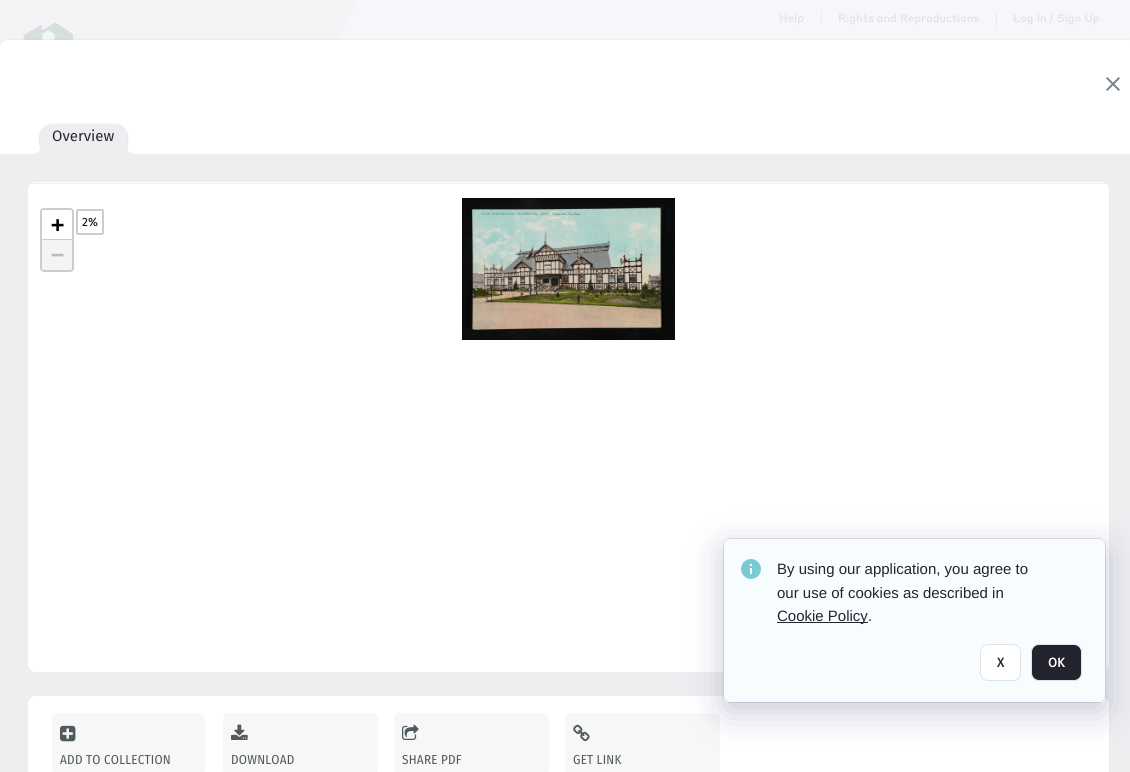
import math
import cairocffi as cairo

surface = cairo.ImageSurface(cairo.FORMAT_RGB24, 1130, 772)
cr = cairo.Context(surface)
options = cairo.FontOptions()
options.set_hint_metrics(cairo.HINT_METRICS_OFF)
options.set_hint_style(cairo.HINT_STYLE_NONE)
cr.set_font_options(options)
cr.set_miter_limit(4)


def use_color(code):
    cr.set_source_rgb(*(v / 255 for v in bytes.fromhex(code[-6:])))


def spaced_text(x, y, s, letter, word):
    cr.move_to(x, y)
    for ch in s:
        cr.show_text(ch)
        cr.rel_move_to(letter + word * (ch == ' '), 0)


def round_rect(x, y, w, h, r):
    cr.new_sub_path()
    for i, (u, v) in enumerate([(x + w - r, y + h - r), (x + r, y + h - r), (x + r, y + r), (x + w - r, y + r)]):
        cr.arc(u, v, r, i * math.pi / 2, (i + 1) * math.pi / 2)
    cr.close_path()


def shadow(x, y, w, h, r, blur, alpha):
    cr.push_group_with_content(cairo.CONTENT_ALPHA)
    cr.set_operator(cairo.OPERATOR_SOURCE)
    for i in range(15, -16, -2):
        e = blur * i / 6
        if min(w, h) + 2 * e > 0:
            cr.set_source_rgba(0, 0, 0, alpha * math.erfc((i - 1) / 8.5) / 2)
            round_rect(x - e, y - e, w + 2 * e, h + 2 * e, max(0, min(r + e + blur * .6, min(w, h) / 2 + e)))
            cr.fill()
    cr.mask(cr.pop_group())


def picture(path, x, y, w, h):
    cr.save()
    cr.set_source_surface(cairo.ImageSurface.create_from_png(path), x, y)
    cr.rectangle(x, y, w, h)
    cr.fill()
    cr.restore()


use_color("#f7f7fb")
cr.paint()
picture("img1.png", 0, 0, 360, 48)
cr.select_font_face("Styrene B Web")
cr.set_font_size(11)
use_color("#dddfe3")
cr.move_to(779, 22)
cr.show_text("Help")
use_color("#ebebee")
cr.rectangle(821, 12, 1, 11)
cr.fill()
use_color("#dddfe3")
cr.move_to(838, 22)
cr.show_text("Rights and Reproductions")
use_color("#ebebee")
cr.rectangle(996, 12, 1, 15)
cr.fill()
use_color("#dddfe3")
cr.move_to(1013, 22)
cr.show_text("Log In / Sign Up")
use_color("#000000")
shadow(0, 40, 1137, 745, 8, 1.5, 0.08)
use_color("#ffffff")
round_rect(0, 40, 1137, 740, 8)
cr.fill()
picture("img2.png", 1106, 77, 14, 14)
use_color("#6f6f9d")
shadow(40, 125, 87, 30, 12, 1, 0.5)
use_color("#eeeef1")
cr.new_path()
cr.move_to(52, 124)
cr.line_to(115, 124)
cr.curve_to(121.5, 124, 127, 129.5, 127, 136)
cr.line_to(127, 154)
cr.line_to(40, 154)
cr.line_to(40, 136)
cr.curve_to(40, 129.5, 45.5, 124, 52, 124)
cr.close_path()
cr.fill()
cr.new_path()
cr.move_to(40.5, 148.5)
cr.line_to(40, 150.5)
cr.line_to(38.5, 152)
cr.line_to(37, 153)
cr.line_to(33, 154)
cr.line_to(41, 154)
cr.line_to(41, 146)
cr.close_path()
cr.fill()
cr.new_path()
cr.move_to(127, 146)
cr.line_to(127.5, 148.5)
cr.line_to(128, 150.5)
cr.line_to(129.5, 152)
cr.line_to(131, 153)
cr.line_to(135, 154)
cr.line_to(127, 154)
cr.close_path()
cr.fill()
cr.select_font_face("Fira Sans")
cr.set_font_size(15)
use_color("#242b2e")
cr.move_to(52, 141)
cr.show_text("Overview")
use_color("#eeeef1")
cr.rectangle(0, 154, 1130, 618)
cr.fill()
use_color("#ffffff")
round_rect(28, 182, 1081, 490, 8)
cr.fill()
use_color("#eeeef1")
cr.rectangle(28, 183, 1081, 1)
cr.fill()
use_color("#ffffff")
cr.rectangle(30, 669, 1077, 1)
cr.fill()
round_rect(41, 209, 32, 62, 3)
use_color("#cccccc")
cr.stroke()
use_color("#ffffff")
cr.new_path()
cr.move_to(44, 210)
cr.line_to(70, 210)
cr.curve_to(71, 210, 72, 211, 72, 212)
cr.line_to(72, 240)
cr.line_to(42, 240)
cr.line_to(42, 212)
cr.curve_to(42, 211, 43, 210, 44, 210)
cr.close_path()
cr.fill()
use_color("#cccccc")
cr.rectangle(42, 239, 30, 1)
cr.fill()
cr.select_font_face("DejaVu Sans Mono", cairo.FONT_SLANT_NORMAL, cairo.FONT_WEIGHT_BOLD)
cr.set_font_size(22)
use_color("#000000")
cr.move_to(51, 232)
cr.show_text("+")
use_color("#f4f4f4")
cr.new_path()
cr.move_to(42, 240)
cr.line_to(72, 240)
cr.line_to(72, 268)
cr.curve_to(72, 269, 71, 270, 70, 270)
cr.line_to(44, 270)
cr.curve_to(43, 270, 42, 269, 42, 268)
cr.close_path()
cr.fill()
use_color("#bbbbbb")
cr.move_to(51, 262)
cr.show_text("−")
picture("img3.png", 462, 198, 213, 142)
round_rect(77, 210, 26, 24, 1)
use_color("#cccccc")
cr.stroke()
cr.select_font_face("Fira Sans")
cr.set_font_size(12)
use_color("#000000")
cr.move_to(82, 226)
cr.show_text("2%")
use_color("#ffffff")
cr.new_path()
cr.move_to(36, 696)
cr.line_to(1101, 696)
cr.curve_to(1105.5, 696, 1109, 699.5, 1109, 704)
cr.line_to(1109, 772)
cr.line_to(28, 772)
cr.line_to(28, 704)
cr.curve_to(28, 699.5, 31.5, 696, 36, 696)
cr.close_path()
cr.fill()
use_color("#f7f7f8")
round_rect(52, 713, 153, 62, 6)
cr.fill()
picture("img4.png", 60, 725, 16, 17)
cr.select_font_face("Fira Sans Condensed")
cr.set_font_size(13)
use_color("#4f5a5f")
spaced_text(60, 764, "ADD TO COLLECTION", 0.25, 0)
use_color("#f7f7f8")
round_rect(223, 713, 155, 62, 6)
cr.fill()
picture("img5.png", 231, 724, 17, 16)
use_color("#4f5a5f")
spaced_text(231, 764, "DOWNLOAD", 0.25, 0)
use_color("#f7f7f8")
round_rect(394, 713, 155, 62, 6)
cr.fill()
picture("img6.png", 402, 724, 17, 16)
use_color("#4f5a5f")
spaced_text(402, 764, "SHARE PDF", 0.25, 0)
use_color("#f7f7f8")
round_rect(565, 713, 155, 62, 6)
cr.fill()
picture("img7.png", 573, 724, 17, 18)
use_color("#4f5a5f")
spaced_text(573, 764, "GET LINK", 0.25, 0)
use_color("#f7fdfe")
round_rect(723.5, 538.5, 382, 164, 7.5)
cr.fill_preserve()
use_color("#e2e2e9")
cr.set_line_width(1)
cr.stroke()
cr.save()
cr.set_fill_rule(cairo.FILL_RULE_EVEN_ODD)
cr.new_path()
cr.move_to(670, 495)
cr.line_to(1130, 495)
cr.line_to(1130, 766)
cr.line_to(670, 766)
cr.close_path()
cr.move_to(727, 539)
cr.line_to(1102, 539)
cr.curve_to(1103.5, 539, 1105, 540.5, 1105, 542)
cr.line_to(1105, 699)
cr.curve_to(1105, 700.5, 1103.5, 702, 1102, 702)
cr.line_to(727, 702)
cr.curve_to(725.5, 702, 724, 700.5, 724, 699)
cr.line_to(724, 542)
cr.curve_to(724, 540.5, 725.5, 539, 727, 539)
cr.close_path()
cr.clip()
use_color("#4d4d87")
shadow(724, 549, 381, 163, 3, 17.5, 0.3)
cr.restore()
picture("img8.png", 741, 559, 20, 20)
cr.select_font_face("Liberation Sans")
cr.set_font_size(15)
use_color("#23232f")
cr.move_to(777, 574)
cr.show_text("By using our application, you agree to")
cr.move_to(777, 598)
cr.show_text("our use of cookies as described in")
cr.rectangle(777, 622, 91, 1)
cr.fill()
cr.move_to(777, 621)
cr.show_text("Cookie Policy")
cr.move_to(868, 621)
cr.show_text(".")
use_color("#ffffff")
round_rect(980.5, 644.5, 40, 36, 7.5)
cr.fill_preserve()
use_color("#e2e2e9")
cr.stroke()
cr.select_font_face("Fira Sans", cairo.FONT_SLANT_NORMAL, cairo.FONT_WEIGHT_BOLD)
cr.set_font_size(13)
use_color("#23232f")
cr.move_to(997, 667)
cr.show_text("X")
round_rect(1031.5, 644.5, 50, 36, 7.5)
cr.fill_preserve()
use_color("#e2e2e9")
cr.stroke()
use_color("#ffffff")
cr.move_to(1048, 667)
cr.show_text("OK")
surface.write_to_png("result.png")
